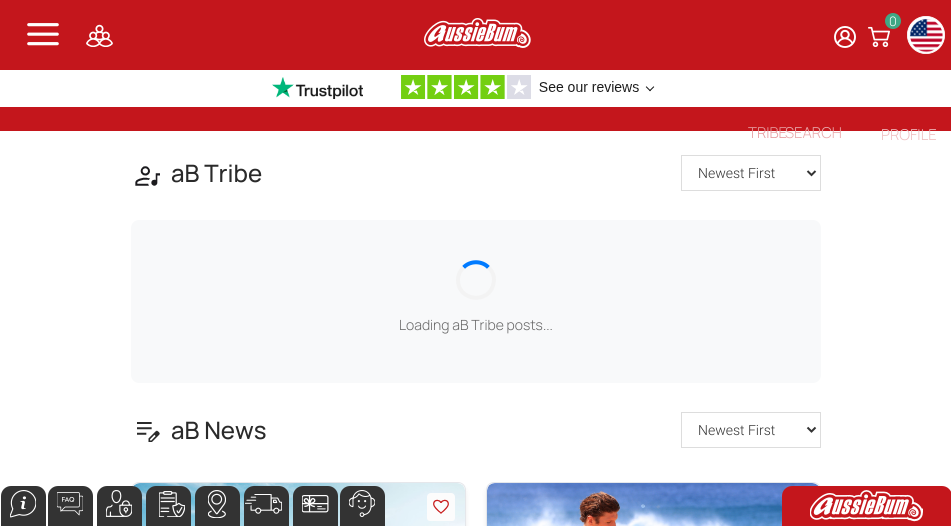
import math
import cairocffi as cairo

surface = cairo.ImageSurface(cairo.FORMAT_RGB24, 951, 526)
cr = cairo.Context(surface)
options = cairo.FontOptions()
options.set_hint_metrics(cairo.HINT_METRICS_OFF)
options.set_hint_style(cairo.HINT_STYLE_NONE)
cr.set_font_options(options)
cr.set_miter_limit(4)


def use_color(code):
    cr.set_source_rgb(*(v / 255 for v in bytes.fromhex(code[-6:])))


def round_rect(x, y, w, h, r):
    cr.new_sub_path()
    for i, (u, v) in enumerate([(x + w - r, y + h - r), (x + r, y + h - r), (x + r, y + r), (x + w - r, y + r)]):
        cr.arc(u, v, r, i * math.pi / 2, (i + 1) * math.pi / 2)
    cr.close_path()


def shadow(x, y, w, h, r, blur, alpha):
    cr.push_group_with_content(cairo.CONTENT_ALPHA)
    cr.set_operator(cairo.OPERATOR_SOURCE)
    for i in range(15, -16, -2):
        e = blur * i / 6
        if min(w, h) + 2 * e > 0:
            cr.set_source_rgba(0, 0, 0, alpha * math.erfc((i - 1) / 8.5) / 2)
            round_rect(x - e, y - e, w + 2 * e, h + 2 * e, max(0, min(r + e + blur * .6, min(w, h) / 2 + e)))
            cr.fill()
    cr.mask(cr.pop_group())


def picture(path, x, y, w, h):
    cr.save()
    cr.set_source_surface(cairo.ImageSurface.create_from_png(path), x, y)
    cr.rectangle(x, y, w, h)
    cr.fill()
    cr.restore()


use_color("#ffffff")
cr.paint()
use_color("#c4161c")
cr.rectangle(0, 0, 951, 70)
cr.fill()
picture("img1.png", 27, 23, 32, 23)
picture("img2.png", 86, 24, 27, 23)
picture("img3.png", 424, 18, 107, 30)
picture("img4.png", 834, 26, 22, 22)
picture("img5.png", 868, 26, 22, 21)
use_color("#40a785")
cr.arc(893, 21, 8, 0, 2 * math.pi)
cr.fill()
cr.select_font_face("Manrope Light")
cr.set_font_size(13)
use_color("#ffffff")
cr.move_to(889, 26)
cr.show_text("0")
cr.new_path()
cr.arc(926, 35, 18.6, 0, 2 * math.pi)
cr.fill_preserve()
cr.set_line_width(0.8)
cr.stroke()
picture("img6.png", 909, 19, 34, 34)
picture("img7.png", 272, 77, 91, 22)
picture("img8.png", 401, 75, 254, 24)
use_color("#c4161c")
cr.rectangle(0, 107, 951, 24)
cr.fill()
cr.set_font_size(15)
use_color("#e69da0")
cr.move_to(748, 138)
cr.show_text("TRIBE")
use_color("#e9aaac")
cr.move_to(785, 138)
cr.show_text("SEARCH")
use_color("#efbfc1")
cr.move_to(881, 140)
cr.show_text("PROFILE")
picture("img9.png", 135, 166, 25, 20)
cr.select_font_face("Manrope Medium")
cr.set_font_size(24)
use_color("#2a2a2a")
cr.move_to(171, 182)
cr.show_text("aB Tribe")
cr.rectangle(681.5, 155.5, 139, 35)
use_color("#dddddd")
cr.set_line_width(1)
cr.stroke()
cr.new_path()
cr.move_to(807.5, 171)
cr.line_to(811.5, 175)
cr.line_to(815.5, 171)
use_color("#333333")
cr.set_line_width(2)
cr.stroke()
cr.select_font_face("Roboto Light")
cr.set_font_size(14)
cr.move_to(698, 178)
cr.show_text("Newest First")
use_color("#f8f9fa")
round_rect(131, 220, 690, 163, 8)
cr.fill()
cr.new_path()
cr.move_to(463.5, 267.5)
cr.curve_to(470, 260.5, 482, 260.5, 488.5, 267.5)
use_color("#007bff")
cr.set_line_width(4)
cr.stroke()
cr.new_path()
cr.move_to(488.5, 267.5)
cr.curve_to(493, 271.5, 495, 277.5, 493.5, 283.5)
cr.curve_to(489.5, 304.5, 458, 301.5, 458, 280)
cr.curve_to(458, 275.5, 460, 270.5, 463.5, 267.5)
use_color("#f3f3f3")
cr.stroke()
cr.select_font_face("Manrope Light")
use_color("#666666")
cr.move_to(399, 330)
cr.show_text("Loading aB Tribe posts...")
picture("img10.png", 137, 422, 23, 20)
cr.select_font_face("Manrope Medium")
cr.set_font_size(24)
use_color("#2a2a2a")
cr.move_to(171, 439)
cr.show_text("aB News")
cr.rectangle(681.5, 412.5, 139, 35)
use_color("#dddddd")
cr.set_line_width(1)
cr.stroke()
cr.new_path()
cr.move_to(807.5, 427.5)
cr.line_to(811.5, 431.5)
cr.line_to(815.5, 427.5)
use_color("#333333")
cr.set_line_width(2)
cr.stroke()
cr.select_font_face("Roboto Light")
cr.set_font_size(14)
cr.move_to(698, 435)
cr.show_text("Newest First")
use_color("#000000")
shadow(132, 487, 333, 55, 7, 3, 0.1)
round_rect(131.5, 482.5, 334, 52, 7.5)
use_color("#e5e7eb")
cr.set_line_width(1)
cr.stroke()
picture("img11.png", 133, 483, 332, 43)
use_color("#fcfcfc")
round_rect(427, 493, 28, 28, 4)
cr.fill()
picture("img12.png", 427, 499, 28, 22)
use_color("#000000")
shadow(487, 487, 333, 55, 7, 3, 0.1)
round_rect(486.5, 482.5, 334, 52, 7.5)
use_color("#e5e7eb")
cr.stroke()
picture("img13.png", 487, 483, 332, 43)
use_color("#333333")
cr.new_path()
cr.move_to(11, 486)
cr.line_to(36, 486)
cr.curve_to(41.5, 486, 46, 490.5, 46, 496)
cr.line_to(46, 526)
cr.line_to(1, 526)
cr.line_to(1, 496)
cr.curve_to(1, 490.5, 5.5, 486, 11, 486)
cr.close_path()
cr.fill()
picture("img14.png", 10, 490, 26, 28)
cr.new_path()
cr.move_to(58, 486)
cr.line_to(83, 486)
cr.curve_to(88.5, 486, 93, 490.5, 93, 496)
cr.line_to(93, 526)
cr.line_to(48, 526)
cr.line_to(48, 496)
cr.curve_to(48, 490.5, 52.5, 486, 58, 486)
cr.close_path()
cr.fill()
picture("img15.png", 57, 492, 26, 24)
cr.new_path()
cr.move_to(107, 486)
cr.line_to(132, 486)
cr.curve_to(137.5, 486, 142, 490.5, 142, 496)
cr.line_to(142, 526)
cr.line_to(97, 526)
cr.line_to(97, 496)
cr.curve_to(97, 490.5, 101.5, 486, 107, 486)
cr.close_path()
cr.fill()
picture("img16.png", 106, 490, 26, 27)
cr.new_path()
cr.move_to(156, 486)
cr.line_to(181, 486)
cr.curve_to(186.5, 486, 191, 490.5, 191, 496)
cr.line_to(191, 526)
cr.line_to(146, 526)
cr.line_to(146, 496)
cr.curve_to(146, 490.5, 150.5, 486, 156, 486)
cr.close_path()
cr.fill()
picture("img17.png", 159, 491, 26, 26)
cr.new_path()
cr.move_to(205, 486)
cr.line_to(230, 486)
cr.curve_to(235.5, 486, 240, 490.5, 240, 496)
cr.line_to(240, 526)
cr.line_to(195, 526)
cr.line_to(195, 496)
cr.curve_to(195, 490.5, 199.5, 486, 205, 486)
cr.close_path()
cr.fill()
picture("img18.png", 208, 490, 18, 28)
cr.new_path()
cr.move_to(254, 486)
cr.line_to(279, 486)
cr.curve_to(284.5, 486, 289, 490.5, 289, 496)
cr.line_to(289, 526)
cr.line_to(244, 526)
cr.line_to(244, 496)
cr.curve_to(244, 490.5, 248.5, 486, 254, 486)
cr.close_path()
cr.fill()
picture("img19.png", 245, 494, 37, 20)
cr.new_path()
cr.move_to(303, 486)
cr.line_to(328, 486)
cr.curve_to(333.5, 486, 338, 490.5, 338, 496)
cr.line_to(338, 526)
cr.line_to(293, 526)
cr.line_to(293, 496)
cr.curve_to(293, 490.5, 297.5, 486, 303, 486)
cr.close_path()
cr.fill()
picture("img20.png", 302, 495, 27, 18)
cr.new_path()
cr.move_to(350, 486)
cr.line_to(375, 486)
cr.curve_to(380.5, 486, 385, 490.5, 385, 496)
cr.line_to(385, 526)
cr.line_to(340, 526)
cr.line_to(340, 496)
cr.curve_to(340, 490.5, 344.5, 486, 350, 486)
cr.close_path()
cr.fill()
picture("img21.png", 349, 490, 26, 27)
use_color("#c4161c")
cr.new_path()
cr.move_to(792, 486)
cr.line_to(942, 486)
cr.curve_to(947.5, 486, 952, 490.5, 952, 496)
cr.line_to(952, 526)
cr.line_to(782, 526)
cr.line_to(782, 496)
cr.curve_to(782, 490.5, 786.5, 486, 792, 486)
cr.close_path()
cr.fill()
picture("img22.png", 810, 490, 113, 32)
surface.write_to_png("result.png")
